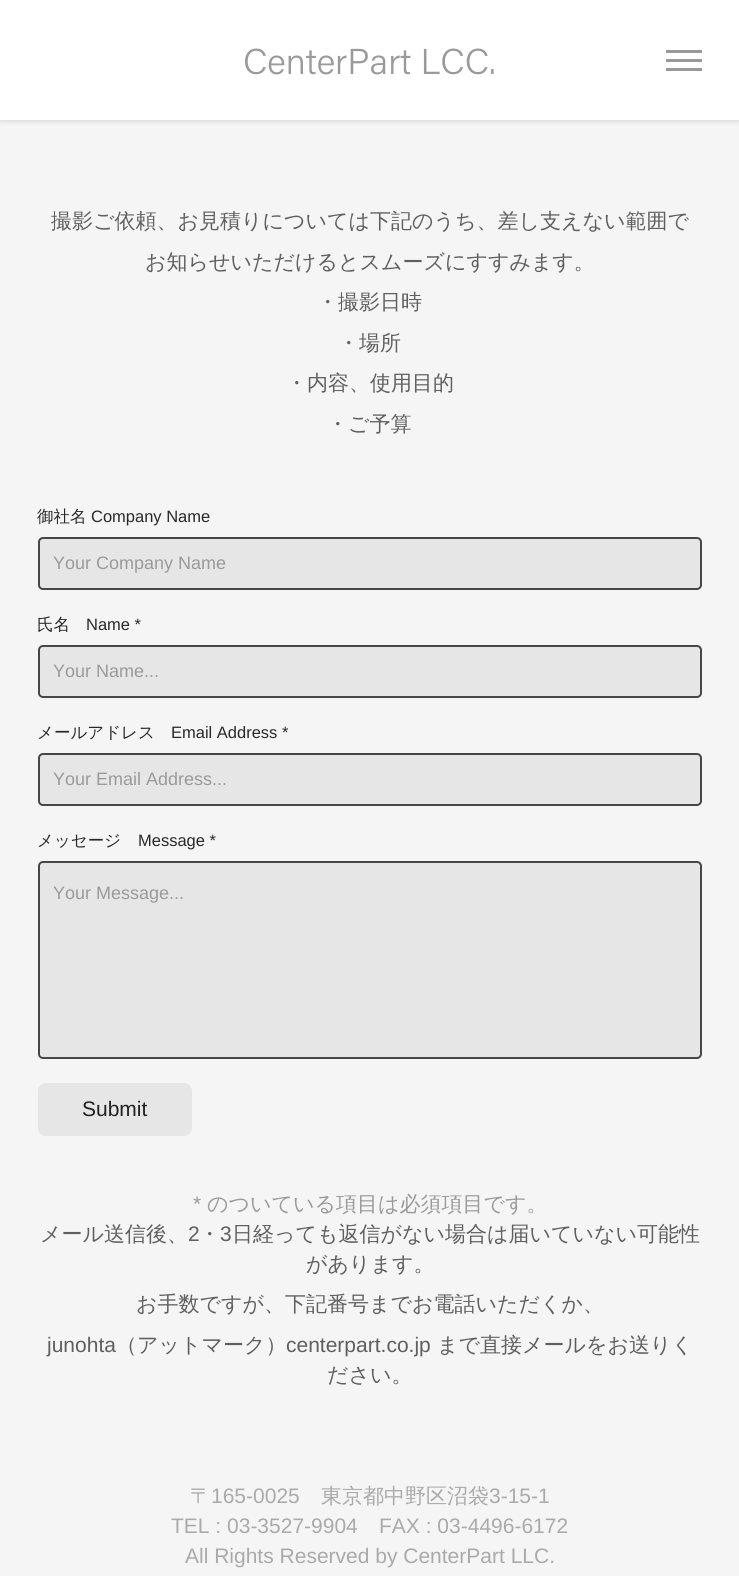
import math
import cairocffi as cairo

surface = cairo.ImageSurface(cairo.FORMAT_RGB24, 739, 1576)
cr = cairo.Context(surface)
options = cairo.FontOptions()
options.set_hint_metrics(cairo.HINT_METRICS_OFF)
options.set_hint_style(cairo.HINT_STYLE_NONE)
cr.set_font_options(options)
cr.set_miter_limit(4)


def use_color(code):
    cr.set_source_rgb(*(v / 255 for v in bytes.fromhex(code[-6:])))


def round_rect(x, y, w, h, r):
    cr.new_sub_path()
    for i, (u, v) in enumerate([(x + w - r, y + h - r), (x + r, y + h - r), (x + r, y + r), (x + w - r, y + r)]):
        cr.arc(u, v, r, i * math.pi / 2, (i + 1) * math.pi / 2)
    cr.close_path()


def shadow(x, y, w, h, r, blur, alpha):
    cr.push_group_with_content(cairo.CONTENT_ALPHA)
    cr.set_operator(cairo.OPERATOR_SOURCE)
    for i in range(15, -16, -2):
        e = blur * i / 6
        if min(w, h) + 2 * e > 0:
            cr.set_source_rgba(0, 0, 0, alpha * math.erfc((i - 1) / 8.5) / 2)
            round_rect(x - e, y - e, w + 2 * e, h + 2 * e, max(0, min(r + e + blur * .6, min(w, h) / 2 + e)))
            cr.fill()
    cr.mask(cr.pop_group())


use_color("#f5f5f5")
cr.paint()
use_color("#000000")
shadow(0, 2, 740, 120, 0, 2, 0.1)
use_color("#ffffff")
cr.rectangle(0, 0, 739, 120)
cr.fill()
cr.select_font_face("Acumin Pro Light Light")
cr.set_font_size(36)
use_color("#9a9a9a")
cr.move_to(243, 74)
cr.show_text("CenterPart LCC.")
use_color("#999999")
cr.rectangle(666, 50, 36, 3)
cr.fill()
cr.rectangle(666, 59, 36, 3)
cr.fill()
cr.rectangle(666, 68, 36, 3)
cr.fill()
cr.select_font_face("WenQuanYi Zen Hei Medium")
cr.set_font_size(21)
use_color("#5f5f5f")
cr.move_to(51, 228)
cr.show_text("撮影ご依頼、お見積りについては下記のうち、差し支えない範囲で")
cr.move_to(145, 269)
cr.show_text("お知らせいただけるとスムーズにすすみます。")
cr.move_to(317, 309)
cr.show_text("・撮影日時")
cr.move_to(338, 350)
cr.show_text("・場所")
cr.move_to(286, 390)
cr.show_text("・内容、使用目的")
cr.move_to(327, 431)
cr.show_text("・ご予算")
cr.set_font_size(16.5)
use_color("#282828")
cr.move_to(37, 522)
cr.show_text("御社名")
cr.select_font_face("Liberation Sans")
cr.move_to(91, 522)
cr.show_text("Company Name")
use_color("#e6e6e6")
round_rect(39, 538, 662, 51, 4)
cr.fill_preserve()
use_color("#474747")
cr.stroke()
cr.set_font_size(18)
use_color("#9a9a9a")
cr.move_to(53, 569)
cr.show_text("Your Company Name")
cr.select_font_face("WenQuanYi Zen Hei Medium")
cr.set_font_size(16.5)
use_color("#282828")
cr.move_to(37, 630)
cr.show_text("氏名")
cr.select_font_face("Liberation Sans")
cr.move_to(86, 630)
cr.show_text("Name *")
use_color("#e6e6e6")
round_rect(39, 646, 662, 51, 4)
cr.fill_preserve()
use_color("#474747")
cr.stroke()
cr.set_font_size(18)
use_color("#9a9a9a")
cr.move_to(53, 677)
cr.show_text("Your Name...")
cr.select_font_face("WenQuanYi Zen Hei Medium")
cr.set_font_size(16.5)
use_color("#282828")
cr.move_to(37, 738)
cr.show_text("メールアドレス")
cr.select_font_face("Liberation Sans")
cr.move_to(171, 738)
cr.show_text("Email Address *")
use_color("#e6e6e6")
round_rect(39, 754, 662, 51, 4)
cr.fill_preserve()
use_color("#474747")
cr.stroke()
cr.set_font_size(18)
use_color("#9a9a9a")
cr.move_to(53, 785)
cr.show_text("Your Email Address...")
cr.select_font_face("WenQuanYi Zen Hei Medium")
cr.set_font_size(16.5)
use_color("#282828")
cr.move_to(37, 846)
cr.show_text("メッセージ")
cr.select_font_face("Liberation Sans")
cr.move_to(138, 846)
cr.show_text("Message *")
use_color("#e6e6e6")
round_rect(39, 862, 662, 196, 4)
cr.fill_preserve()
use_color("#474747")
cr.stroke()
cr.set_font_size(18)
use_color("#9a9a9a")
cr.move_to(53, 899)
cr.show_text("Your Message...")
use_color("#e6e6e6")
round_rect(38, 1083, 154, 53, 8)
cr.fill()
cr.set_font_size(21)
use_color("#212121")
cr.move_to(82, 1116)
cr.show_text("Submit")
use_color("#9a9a9a")
cr.move_to(193, 1211)
cr.show_text("*")
cr.select_font_face("WenQuanYi Zen Hei Medium")
cr.move_to(207, 1211)
cr.show_text("のついている項目は必須項目です。")
use_color("#5f5f5f")
cr.move_to(40, 1241)
cr.show_text("メール送信後、")
cr.select_font_face("Liberation Sans")
cr.move_to(188, 1241)
cr.show_text("2")
cr.select_font_face("WenQuanYi Zen Hei Medium")
cr.move_to(199, 1241)
cr.show_text("・")
cr.select_font_face("Liberation Sans")
cr.move_to(220, 1241)
cr.show_text("3")
cr.select_font_face("WenQuanYi Zen Hei Medium")
cr.move_to(232, 1241)
cr.show_text("日経っても返信がない場合は届いていない可能性")
cr.move_to(306, 1271)
cr.show_text("があります。")
cr.move_to(136, 1311)
cr.show_text("お手数ですが、下記番号までお電話いただくか、")
cr.select_font_face("Liberation Sans")
cr.move_to(47, 1352)
cr.show_text("junohta")
cr.select_font_face("WenQuanYi Zen Hei Medium")
cr.move_to(116, 1352)
cr.show_text("（アットマーク）")
cr.select_font_face("Liberation Sans")
cr.move_to(286, 1352)
cr.show_text("centerpart.co.jp")
cr.select_font_face("WenQuanYi Zen Hei Medium")
cr.move_to(437, 1352)
cr.show_text("まで直接メールをお送りく")
cr.move_to(327, 1382)
cr.show_text("ださい。")
use_color("#aaaaaa")
cr.move_to(190, 1503)
cr.show_text("〒")
cr.select_font_face("Liberation Sans")
cr.move_to(211, 1503)
cr.show_text("165-0025")
cr.select_font_face("WenQuanYi Zen Hei Medium")
cr.move_to(321, 1503)
cr.show_text("東京都中野区沼袋")
cr.select_font_face("Liberation Sans")
cr.move_to(489, 1503)
cr.show_text("3-15-1")
cr.move_to(171, 1533)
cr.show_text("TEL : 03-3527-9904")
cr.move_to(379, 1533)
cr.show_text("FAX : 03-4496-6172")
cr.move_to(185, 1563)
cr.show_text("All Rights Reserved by CenterPart LLC.")
surface.write_to_png("result.png")
